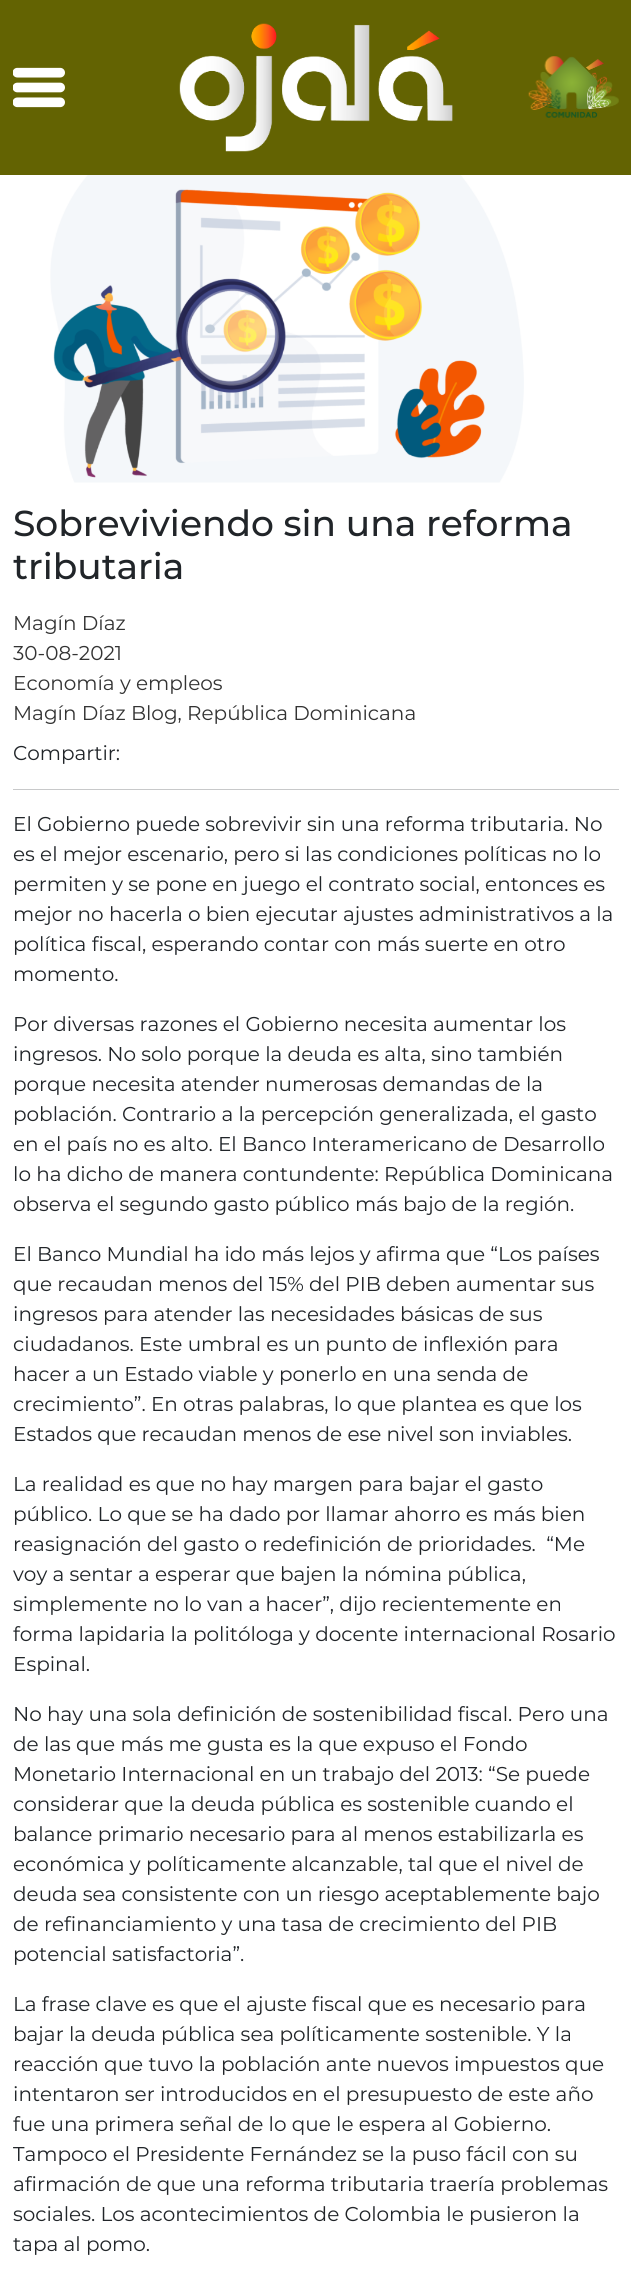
import math
import cairocffi as cairo

surface = cairo.ImageSurface(cairo.FORMAT_RGB24, 631, 2278)
cr = cairo.Context(surface)
options = cairo.FontOptions()
options.set_hint_metrics(cairo.HINT_METRICS_OFF)
options.set_hint_style(cairo.HINT_STYLE_NONE)
cr.set_font_options(options)
cr.set_miter_limit(4)


def use_color(code):
    cr.set_source_rgb(*(v / 255 for v in bytes.fromhex(code[-6:])))


def picture(path, x, y, w, h):
    cr.save()
    cr.set_source_surface(cairo.ImageSurface.create_from_png(path), x, y)
    cr.rectangle(x, y, w, h)
    cr.fill()
    cr.restore()


use_color("#ffffff")
cr.paint()
use_color("#636302")
cr.rectangle(0, 0, 631, 175)
cr.fill()
picture("img1.png", 13, 67, 52, 41)
picture("img2.png", 179, 23, 274, 129)
picture("img3.png", 528, 56, 91, 62)
picture("img4.png", 50, 175, 474, 308)
cr.select_font_face("Montserrat Medium")
cr.set_font_size(36)
use_color("#212529")
cr.move_to(13, 536)
cr.show_text("Sobreviviendo sin una reforma")
cr.move_to(13, 579)
cr.show_text("tributaria")
cr.select_font_face("Montserrat")
cr.set_font_size(20)
use_color("#333333")
cr.move_to(13, 630)
cr.show_text("Magín Díaz")
cr.move_to(13, 660)
cr.show_text("30-08-2021")
cr.move_to(13, 690)
cr.show_text("Economía y empleos")
cr.move_to(13, 720)
cr.show_text("Magín Díaz Blog, República Dominicana")
use_color("#212529")
cr.move_to(13, 760)
cr.show_text("Compartir:")
use_color("#c8c9ca")
cr.rectangle(13, 789, 606, 1)
cr.fill()
use_color("#212529")
cr.move_to(13, 831)
cr.show_text("El Gobierno puede sobrevivir sin una reforma tributaria. No")
cr.move_to(13, 861)
cr.show_text("es el mejor escenario, pero si las condiciones políticas no lo")
cr.move_to(13, 891)
cr.show_text("permiten y se pone en juego el contrato social, entonces es")
cr.move_to(13, 921)
cr.show_text("mejor no hacerla o bien ejecutar ajustes administrativos a la")
cr.move_to(13, 951)
cr.show_text("política fiscal, esperando contar con más suerte en otro")
cr.move_to(13, 981)
cr.show_text("momento.")
cr.move_to(13, 1031)
cr.show_text("Por diversas razones el Gobierno necesita aumentar los")
cr.move_to(13, 1061)
cr.show_text("ingresos. No solo porque la deuda es alta, sino también")
cr.move_to(13, 1091)
cr.show_text("porque necesita atender numerosas demandas de la")
cr.move_to(13, 1121)
cr.show_text("población. Contrario a la percepción generalizada, el gasto")
cr.move_to(13, 1151)
cr.show_text("en el país no es alto. El Banco Interamericano de Desarrollo")
cr.move_to(13, 1181)
cr.show_text("lo ha dicho de manera contundente: República Dominicana")
cr.move_to(13, 1211)
cr.show_text("observa el segundo gasto público más bajo de la región.")
cr.move_to(13, 1261)
cr.show_text("El Banco Mundial ha ido más lejos y afirma que “Los países")
cr.move_to(13, 1291)
cr.show_text("que recaudan menos del 15% del PIB deben aumentar sus")
cr.move_to(13, 1321)
cr.show_text("ingresos para atender las necesidades básicas de sus")
cr.move_to(13, 1351)
cr.show_text("ciudadanos. Este umbral es un punto de inflexión para")
cr.move_to(13, 1381)
cr.show_text("hacer a un Estado viable y ponerlo en una senda de")
cr.move_to(13, 1411)
cr.show_text("crecimiento”. En otras palabras, lo que plantea es que los")
cr.move_to(13, 1441)
cr.show_text("Estados que recaudan menos de ese nivel son inviables.")
cr.move_to(13, 1491)
cr.show_text("La realidad es que no hay margen para bajar el gasto")
cr.move_to(13, 1521)
cr.show_text("público. Lo que se ha dado por llamar ahorro es más bien")
cr.move_to(13, 1551)
cr.show_text("reasignación del gasto o redefinición de prioridades.  “Me")
cr.move_to(13, 1581)
cr.show_text("voy a sentar a esperar que bajen la nómina pública,")
cr.move_to(13, 1611)
cr.show_text("simplemente no lo van a hacer”, dijo recientemente en")
cr.move_to(13, 1641)
cr.show_text("forma lapidaria la politóloga y docente internacional Rosario")
cr.move_to(13, 1671)
cr.show_text("Espinal.")
cr.move_to(13, 1721)
cr.show_text("No hay una sola definición de sostenibilidad fiscal. Pero una")
cr.move_to(13, 1751)
cr.show_text("de las que más me gusta es la que expuso el Fondo")
cr.move_to(13, 1781)
cr.show_text("Monetario Internacional en un trabajo del 2013: “Se puede")
cr.move_to(13, 1811)
cr.show_text("considerar que la deuda pública es sostenible cuando el")
cr.move_to(13, 1841)
cr.show_text("balance primario necesario para al menos estabilizarla es")
cr.move_to(13, 1871)
cr.show_text("económica y políticamente alcanzable, tal que el nivel de")
cr.move_to(13, 1901)
cr.show_text("deuda sea consistente con un riesgo aceptablemente bajo")
cr.move_to(13, 1931)
cr.show_text("de refinanciamiento y una tasa de crecimiento del PIB")
cr.move_to(13, 1961)
cr.show_text("potencial satisfactoria”.")
cr.move_to(13, 2011)
cr.show_text("La frase clave es que el ajuste fiscal que es necesario para")
cr.move_to(13, 2041)
cr.show_text("bajar la deuda pública sea políticamente sostenible. Y la")
cr.move_to(13, 2071)
cr.show_text("reacción que tuvo la población ante nuevos impuestos que")
cr.move_to(13, 2101)
cr.show_text("intentaron ser introducidos en el presupuesto de este año")
cr.move_to(13, 2131)
cr.show_text("fue una primera señal de lo que le espera al Gobierno.")
cr.move_to(13, 2161)
cr.show_text("Tampoco el Presidente Fernández se la puso fácil con su")
cr.move_to(13, 2191)
cr.show_text("afirmación de que una reforma tributaria traería problemas")
cr.move_to(13, 2221)
cr.show_text("sociales. Los acontecimientos de Colombia le pusieron la")
cr.move_to(13, 2251)
cr.show_text("tapa al pomo.")
surface.write_to_png("result.png")
